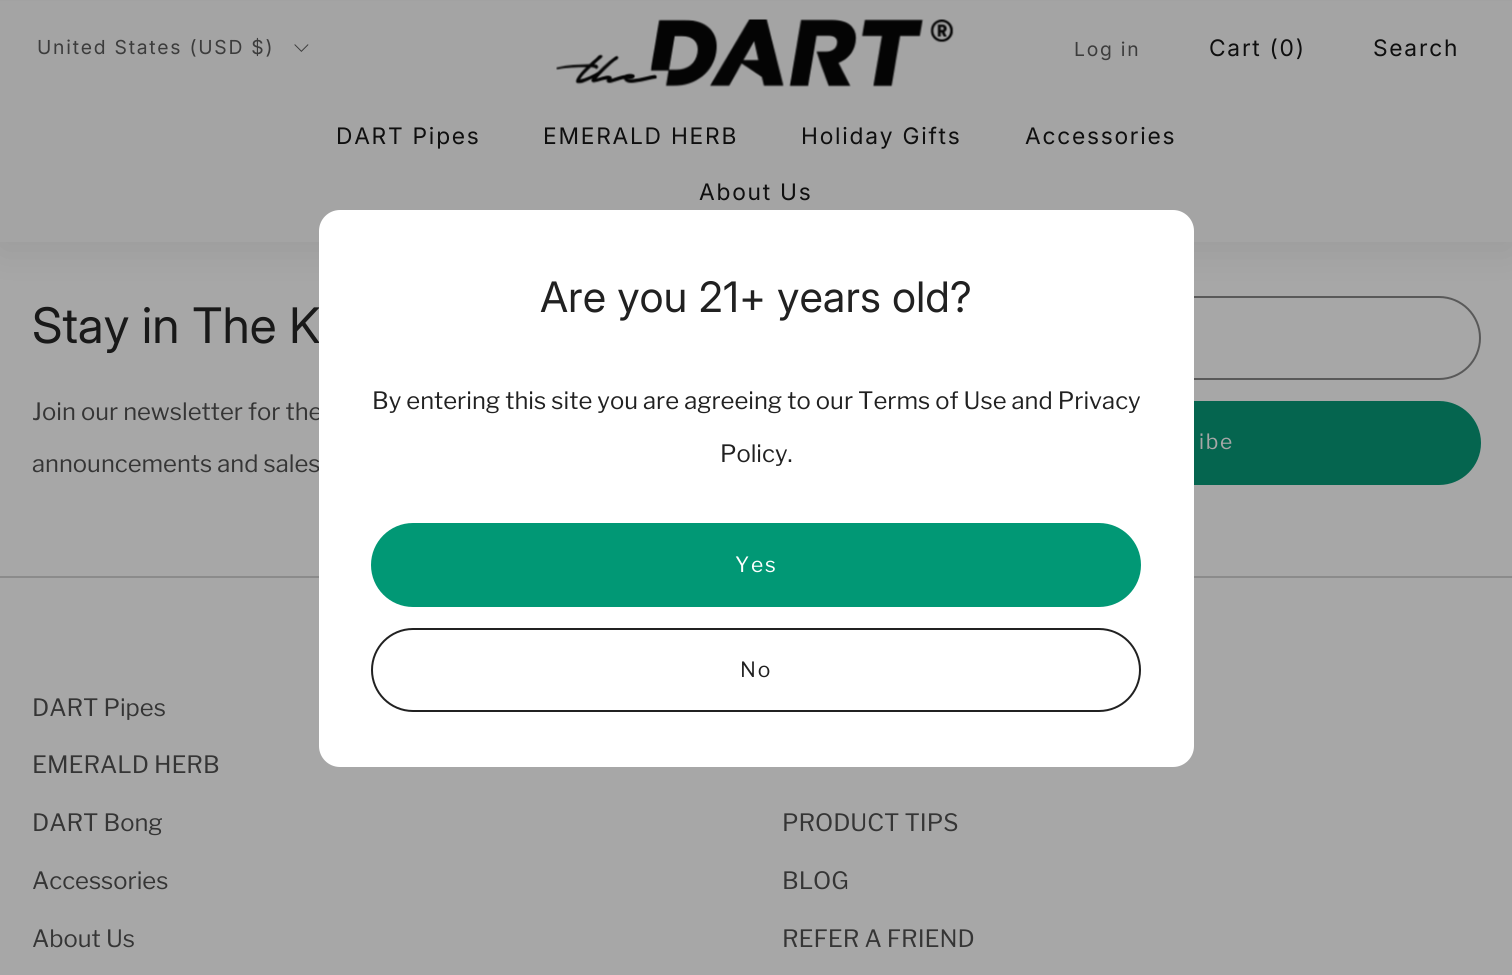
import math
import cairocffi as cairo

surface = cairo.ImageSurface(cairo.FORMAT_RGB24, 1512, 975)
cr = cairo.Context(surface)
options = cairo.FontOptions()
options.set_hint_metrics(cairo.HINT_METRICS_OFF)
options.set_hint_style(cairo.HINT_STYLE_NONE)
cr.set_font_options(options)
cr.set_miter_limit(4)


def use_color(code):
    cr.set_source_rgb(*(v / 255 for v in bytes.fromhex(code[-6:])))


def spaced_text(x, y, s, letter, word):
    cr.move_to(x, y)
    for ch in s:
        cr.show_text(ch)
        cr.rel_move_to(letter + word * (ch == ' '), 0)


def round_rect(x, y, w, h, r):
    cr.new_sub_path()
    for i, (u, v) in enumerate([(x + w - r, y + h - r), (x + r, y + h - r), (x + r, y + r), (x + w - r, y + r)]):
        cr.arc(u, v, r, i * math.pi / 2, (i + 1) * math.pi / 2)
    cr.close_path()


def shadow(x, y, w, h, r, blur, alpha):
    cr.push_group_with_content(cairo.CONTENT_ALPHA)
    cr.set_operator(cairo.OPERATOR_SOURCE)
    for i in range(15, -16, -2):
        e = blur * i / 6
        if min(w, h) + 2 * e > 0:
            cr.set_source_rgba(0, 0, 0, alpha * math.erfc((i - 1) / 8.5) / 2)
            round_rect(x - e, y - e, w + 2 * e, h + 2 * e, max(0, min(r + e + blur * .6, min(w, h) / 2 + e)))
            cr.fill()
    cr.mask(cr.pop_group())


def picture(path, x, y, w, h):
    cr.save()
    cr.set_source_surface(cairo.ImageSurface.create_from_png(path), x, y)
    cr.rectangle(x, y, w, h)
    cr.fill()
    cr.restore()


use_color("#a7a7a7")
cr.paint()
round_rect(874, 297, 606, 82, 41)
use_color("#595959")
cr.stroke()
use_color("#040404")
shadow(0, 5, 1512, 244, 0, 21, 0.08)
use_color("#a4a4a4")
cr.rectangle(0, 1, 1512, 241)
cr.fill()
picture("img1.png", 556, 19, 398, 68)
cr.select_font_face("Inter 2")
cr.set_font_size(19.3)
use_color("#3c3c3c")
spaced_text(37, 54, "United States (USD $)", 1.75, 0)
picture("img2.png", 294, 44, 15, 8)
spaced_text(1074, 56, "Log in", 1.75, 0)
cr.set_font_size(22.75)
use_color("#0f0f0f")
spaced_text(1209, 56, "Cart (0)", 1.75, 0)
spaced_text(1373, 56, "Search", 1.75, 0)
spaced_text(336, 144, "DART Pipes", 1.75, 0)
spaced_text(543, 144, "EMERALD HERB", 1.75, 0)
spaced_text(801, 144, "Holiday Gifts", 1.75, 0)
spaced_text(1025, 144, "Accessories", 1.75, 0)
spaced_text(699, 200, "About Us", 1.75, 0)
cr.select_font_face("Inter")
cr.set_font_size(49)
use_color("#191919")
cr.move_to(32, 343)
cr.show_text("Stay in The K")
cr.select_font_face("Libre Franklin")
cr.set_font_size(23.8)
use_color("#353535")
cr.move_to(32, 420)
cr.show_text("Join our newsletter for the")
cr.move_to(32, 472)
cr.show_text("announcements and sales")
use_color("#05654f")
round_rect(873, 401, 608, 84, 42)
cr.fill()
cr.set_font_size(21)
use_color("#a7a7a7")
spaced_text(1199, 449, "ibe", 1.75, 0)
use_color("#8b8b8b")
cr.rectangle(0, 576, 1512, 2)
cr.fill()
cr.set_font_size(23.8)
use_color("#353535")
cr.move_to(32, 716)
cr.show_text("DART Pipes")
cr.move_to(32, 773)
cr.show_text("EMERALD HERB")
cr.move_to(32, 831)
cr.show_text("DART Bong")
cr.move_to(32, 889)
cr.show_text("Accessories")
cr.move_to(32, 947)
cr.show_text("About Us")
cr.move_to(782, 831)
cr.show_text("PRODUCT TIPS")
cr.move_to(782, 889)
cr.show_text("BLOG")
cr.move_to(782, 947)
cr.show_text("REFER A FRIEND")
use_color("#ffffff")
round_rect(319, 210, 875, 557, 21)
cr.fill()
cr.select_font_face("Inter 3")
cr.set_font_size(42)
use_color("#212121")
cr.move_to(540, 312)
cr.show_text("Are you 21+ years old?")
cr.select_font_face("Libre Franklin")
cr.set_font_size(23.8)
cr.move_to(372, 409)
cr.show_text("By entering this site you are agreeing to our Terms of Use and Privacy")
cr.move_to(720, 462)
cr.show_text("Policy.")
use_color("#019875")
round_rect(371, 523, 770, 84, 42)
cr.fill()
cr.set_font_size(21)
use_color("#ffffff")
spaced_text(735, 572, "Yes", 1.75, 0)
round_rect(372, 629, 768, 82, 41)
use_color("#212121")
cr.stroke()
spaced_text(740, 677, "No", 1.75, 0)
surface.write_to_png("result.png")
